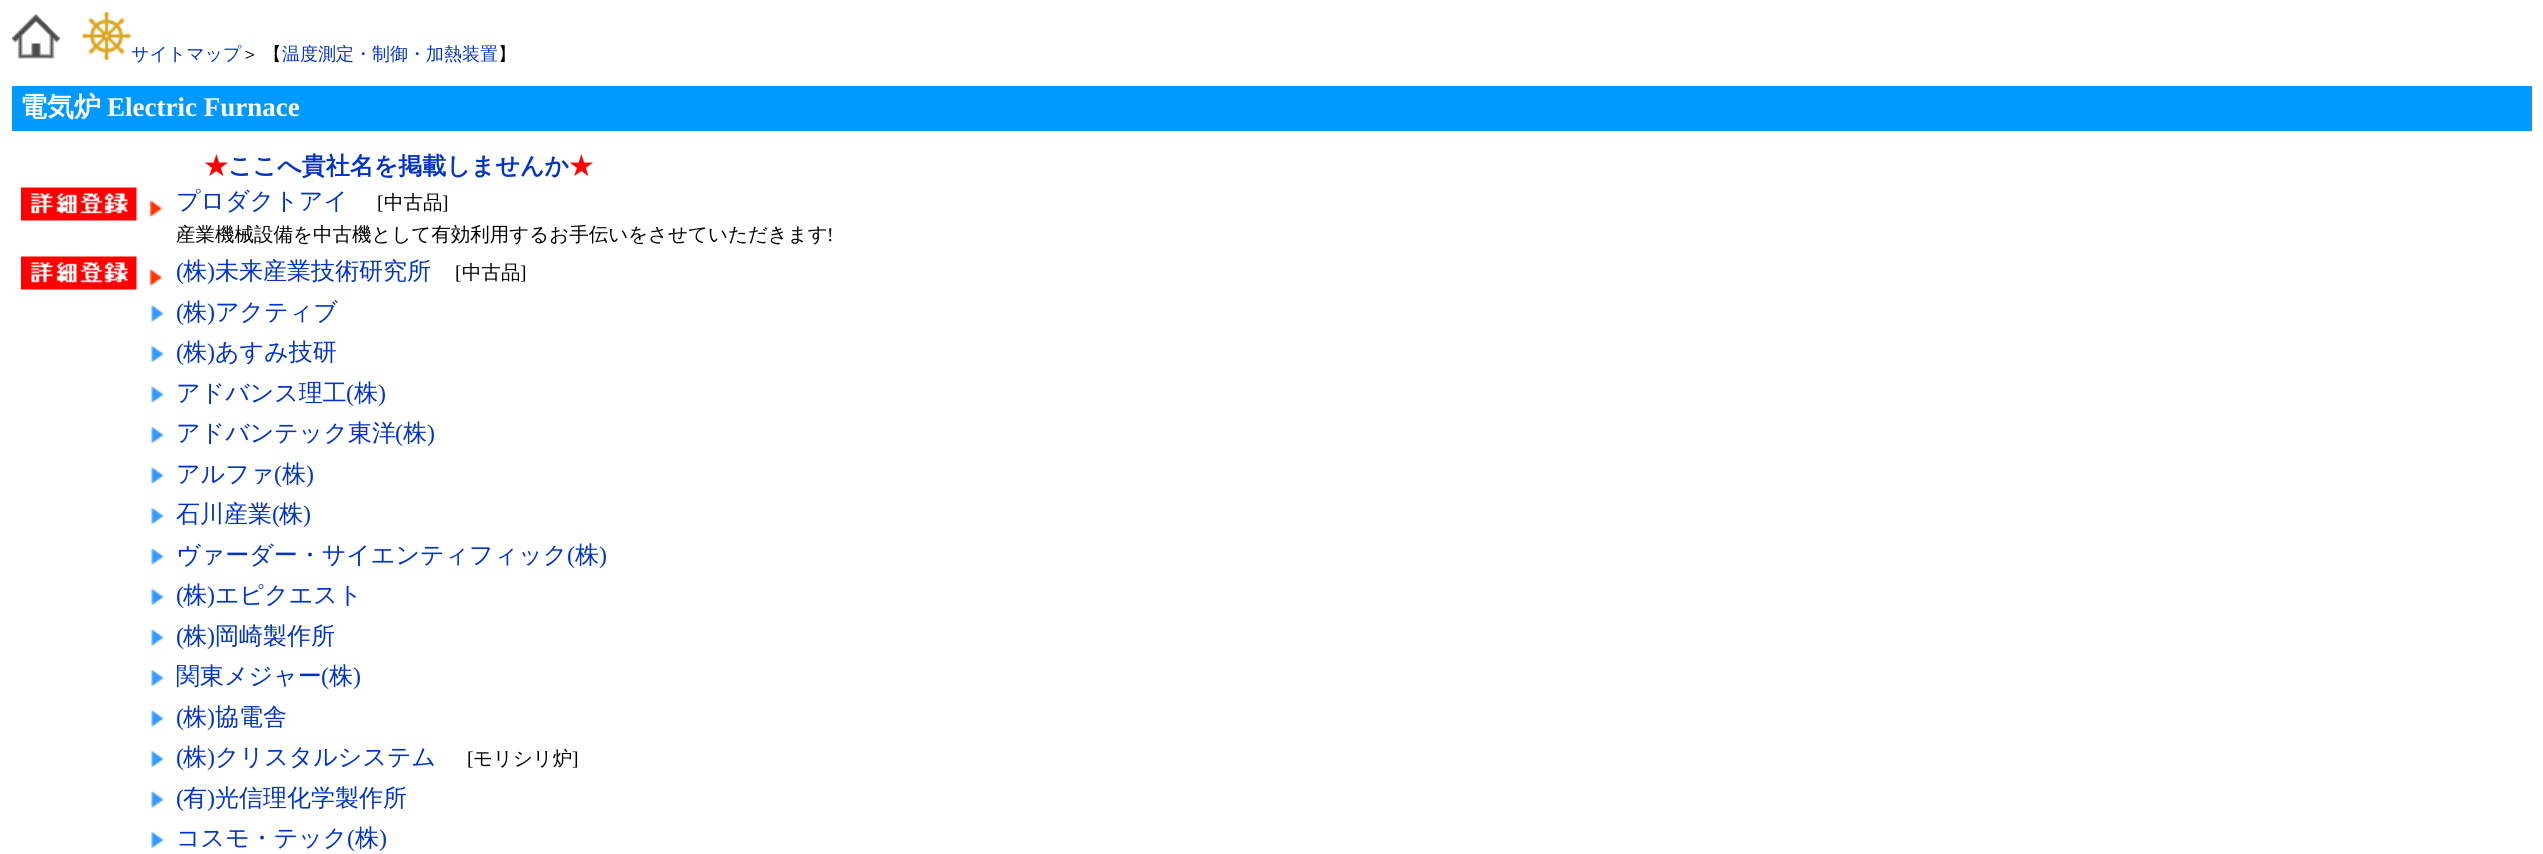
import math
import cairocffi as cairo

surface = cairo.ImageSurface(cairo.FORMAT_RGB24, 2543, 854)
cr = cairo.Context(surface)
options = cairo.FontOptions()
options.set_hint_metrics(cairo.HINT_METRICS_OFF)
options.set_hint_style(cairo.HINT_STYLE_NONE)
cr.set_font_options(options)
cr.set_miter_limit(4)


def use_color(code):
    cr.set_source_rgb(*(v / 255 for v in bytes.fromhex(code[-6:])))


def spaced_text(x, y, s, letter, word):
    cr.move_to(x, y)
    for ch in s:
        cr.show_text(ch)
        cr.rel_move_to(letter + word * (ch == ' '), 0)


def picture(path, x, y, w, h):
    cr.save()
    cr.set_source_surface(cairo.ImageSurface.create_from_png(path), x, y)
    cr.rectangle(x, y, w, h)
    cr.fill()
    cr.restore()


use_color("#ffffff")
cr.paint()
picture("img1.png", 12, 13, 48, 46)
picture("img2.png", 82, 12, 49, 48)
cr.select_font_face("WenQuanYi Zen Hei Medium")
cr.set_font_size(18)
use_color("#0033cc")
cr.move_to(131, 60)
cr.show_text("サイトマップ")
use_color("#000000")
spaced_text(241, 60, "＞ 【", 0, -1)
use_color("#0033cc")
cr.move_to(282, 60)
cr.show_text("温度測定・制御・加熱装置")
use_color("#000000")
cr.move_to(498, 60)
cr.show_text("】")
use_color("#0099ff")
cr.rectangle(12, 86, 2520, 45)
cr.fill()
cr.select_font_face("WenQuanYi Zen Hei", cairo.FONT_SLANT_NORMAL, cairo.FONT_WEIGHT_BOLD)
cr.set_font_size(27)
use_color("#ffffff")
cr.move_to(20, 116)
cr.show_text("電気炉")
cr.select_font_face("Liberation Serif", cairo.FONT_SLANT_NORMAL, cairo.FONT_WEIGHT_BOLD)
cr.move_to(107, 116)
cr.show_text("Electric Furnace")
cr.select_font_face("WenQuanYi Zen Hei", cairo.FONT_SLANT_NORMAL, cairo.FONT_WEIGHT_BOLD)
cr.set_font_size(24)
use_color("#ff0000")
cr.move_to(204, 174)
cr.show_text("★")
use_color("#0033cc")
cr.move_to(228, 174)
cr.show_text("ここへ貴社名を掲載しませんか")
use_color("#ff0000")
cr.move_to(569, 174)
cr.show_text("★")
picture("img3.png", 21, 187, 116, 34)
picture("img4.png", 149, 199, 14, 19)
cr.select_font_face("WenQuanYi Zen Hei Medium")
use_color("#0033cc")
cr.move_to(176, 209)
cr.show_text("プロダクトアイ")
cr.select_font_face("Liberation Serif")
cr.set_font_size(19.5)
use_color("#000000")
cr.move_to(377, 209)
cr.show_text("[")
cr.select_font_face("WenQuanYi Zen Hei Medium")
cr.move_to(384, 209)
cr.show_text("中古品")
cr.select_font_face("Liberation Serif")
cr.move_to(442, 209)
cr.show_text("]")
cr.select_font_face("WenQuanYi Zen Hei Medium")
cr.move_to(176, 241)
cr.show_text("産業機械設備を中古機として有効利用するお手伝いをさせていただきます")
cr.select_font_face("Liberation Serif")
cr.move_to(827, 241)
cr.show_text("!")
picture("img3.png", 21, 256, 116, 34)
picture("img4.png", 149, 268, 14, 19)
cr.set_font_size(24)
use_color("#0033cc")
cr.move_to(176, 279)
cr.show_text("(")
cr.select_font_face("WenQuanYi Zen Hei Medium")
cr.move_to(183, 279)
cr.show_text("株")
cr.select_font_face("Liberation Serif")
cr.move_to(207, 279)
cr.show_text(")")
cr.select_font_face("WenQuanYi Zen Hei Medium")
cr.move_to(215, 279)
cr.show_text("未来産業技術研究所")
cr.select_font_face("Liberation Serif")
cr.set_font_size(19.5)
use_color("#000000")
cr.move_to(455, 279)
cr.show_text("[")
cr.select_font_face("WenQuanYi Zen Hei Medium")
cr.move_to(462, 279)
cr.show_text("中古品")
cr.select_font_face("Liberation Serif")
cr.move_to(520, 279)
cr.show_text("]")
picture("img5.png", 151, 304, 13, 19)
cr.set_font_size(24)
use_color("#0033cc")
cr.move_to(176, 320)
cr.show_text("(")
cr.select_font_face("WenQuanYi Zen Hei Medium")
cr.move_to(183, 320)
cr.show_text("株")
cr.select_font_face("Liberation Serif")
cr.move_to(207, 320)
cr.show_text(")")
cr.select_font_face("WenQuanYi Zen Hei Medium")
cr.move_to(215, 320)
cr.show_text("アクティブ")
picture("img6.png", 151, 345, 13, 18)
cr.select_font_face("Liberation Serif")
cr.move_to(176, 360)
cr.show_text("(")
cr.select_font_face("WenQuanYi Zen Hei Medium")
cr.move_to(183, 360)
cr.show_text("株")
cr.select_font_face("Liberation Serif")
cr.move_to(207, 360)
cr.show_text(")")
cr.select_font_face("WenQuanYi Zen Hei Medium")
cr.move_to(215, 360)
cr.show_text("あすみ技研")
picture("img5.png", 151, 385, 13, 19)
cr.move_to(176, 401)
cr.show_text("アドバンス理工")
cr.select_font_face("Liberation Serif")
cr.move_to(346, 401)
cr.show_text("(")
cr.select_font_face("WenQuanYi Zen Hei Medium")
cr.move_to(354, 401)
cr.show_text("株")
cr.select_font_face("Liberation Serif")
cr.move_to(378, 401)
cr.show_text(")")
picture("img6.png", 151, 426, 13, 18)
cr.select_font_face("WenQuanYi Zen Hei Medium")
cr.move_to(176, 441)
cr.show_text("アドバンテック東洋")
cr.select_font_face("Liberation Serif")
cr.move_to(395, 441)
cr.show_text("(")
cr.select_font_face("WenQuanYi Zen Hei Medium")
cr.move_to(403, 441)
cr.show_text("株")
cr.select_font_face("Liberation Serif")
cr.move_to(427, 441)
cr.show_text(")")
picture("img5.png", 151, 466, 13, 19)
cr.select_font_face("WenQuanYi Zen Hei Medium")
cr.move_to(176, 482)
cr.show_text("アルファ")
cr.select_font_face("Liberation Serif")
cr.move_to(274, 482)
cr.show_text("(")
cr.select_font_face("WenQuanYi Zen Hei Medium")
cr.move_to(282, 482)
cr.show_text("株")
cr.select_font_face("Liberation Serif")
cr.move_to(306, 482)
cr.show_text(")")
picture("img6.png", 151, 507, 13, 18)
cr.select_font_face("WenQuanYi Zen Hei Medium")
cr.move_to(176, 522)
cr.show_text("石川産業")
cr.select_font_face("Liberation Serif")
cr.move_to(272, 522)
cr.show_text("(")
cr.select_font_face("WenQuanYi Zen Hei Medium")
cr.move_to(279, 522)
cr.show_text("株")
cr.select_font_face("Liberation Serif")
cr.move_to(303, 522)
cr.show_text(")")
picture("img5.png", 151, 547, 13, 19)
cr.select_font_face("WenQuanYi Zen Hei Medium")
cr.move_to(176, 563)
cr.show_text("ヴァーダー・サイエンティフィック")
cr.select_font_face("Liberation Serif")
cr.move_to(567, 563)
cr.show_text("(")
cr.select_font_face("WenQuanYi Zen Hei Medium")
cr.move_to(575, 563)
cr.show_text("株")
cr.select_font_face("Liberation Serif")
cr.move_to(599, 563)
cr.show_text(")")
picture("img6.png", 151, 588, 13, 18)
cr.move_to(176, 603)
cr.show_text("(")
cr.select_font_face("WenQuanYi Zen Hei Medium")
cr.move_to(183, 603)
cr.show_text("株")
cr.select_font_face("Liberation Serif")
cr.move_to(207, 603)
cr.show_text(")")
cr.select_font_face("WenQuanYi Zen Hei Medium")
cr.move_to(215, 603)
cr.show_text("エピクエスト")
picture("img5.png", 151, 628, 13, 19)
cr.select_font_face("Liberation Serif")
cr.move_to(176, 644)
cr.show_text("(")
cr.select_font_face("WenQuanYi Zen Hei Medium")
cr.move_to(183, 644)
cr.show_text("株")
cr.select_font_face("Liberation Serif")
cr.move_to(207, 644)
cr.show_text(")")
cr.select_font_face("WenQuanYi Zen Hei Medium")
cr.move_to(215, 644)
cr.show_text("岡崎製作所")
picture("img6.png", 151, 669, 13, 18)
cr.move_to(176, 684)
cr.show_text("関東メジャー")
cr.select_font_face("Liberation Serif")
cr.move_to(321, 684)
cr.show_text("(")
cr.select_font_face("WenQuanYi Zen Hei Medium")
cr.move_to(329, 684)
cr.show_text("株")
cr.select_font_face("Liberation Serif")
cr.move_to(353, 684)
cr.show_text(")")
picture("img5.png", 151, 709, 13, 19)
cr.move_to(176, 725)
cr.show_text("(")
cr.select_font_face("WenQuanYi Zen Hei Medium")
cr.move_to(183, 725)
cr.show_text("株")
cr.select_font_face("Liberation Serif")
cr.move_to(207, 725)
cr.show_text(")")
cr.select_font_face("WenQuanYi Zen Hei Medium")
cr.move_to(215, 725)
cr.show_text("協電舎")
picture("img6.png", 151, 750, 13, 18)
cr.select_font_face("Liberation Serif")
cr.move_to(176, 765)
cr.show_text("(")
cr.select_font_face("WenQuanYi Zen Hei Medium")
cr.move_to(183, 765)
cr.show_text("株")
cr.select_font_face("Liberation Serif")
cr.move_to(207, 765)
cr.show_text(")")
cr.select_font_face("WenQuanYi Zen Hei Medium")
cr.move_to(215, 765)
cr.show_text("クリスタルシステム")
cr.select_font_face("Liberation Serif")
cr.set_font_size(19.5)
use_color("#000000")
cr.move_to(467, 765)
cr.show_text("[")
cr.select_font_face("WenQuanYi Zen Hei Medium")
cr.move_to(473, 765)
cr.show_text("モリシリ炉")
cr.select_font_face("Liberation Serif")
cr.move_to(572, 765)
cr.show_text("]")
picture("img5.png", 151, 790, 13, 19)
cr.set_font_size(24)
use_color("#0033cc")
cr.move_to(176, 806)
cr.show_text("(")
cr.select_font_face("WenQuanYi Zen Hei Medium")
cr.move_to(183, 806)
cr.show_text("有")
cr.select_font_face("Liberation Serif")
cr.move_to(207, 806)
cr.show_text(")")
cr.select_font_face("WenQuanYi Zen Hei Medium")
cr.move_to(215, 806)
cr.show_text("光信理化学製作所")
picture("img6.png", 151, 831, 13, 18)
cr.move_to(176, 846)
cr.show_text("コスモ・テック")
cr.select_font_face("Liberation Serif")
cr.move_to(347, 846)
cr.show_text("(")
cr.select_font_face("WenQuanYi Zen Hei Medium")
cr.move_to(355, 846)
cr.show_text("株")
cr.select_font_face("Liberation Serif")
cr.move_to(379, 846)
cr.show_text(")")
surface.write_to_png("result.png")
